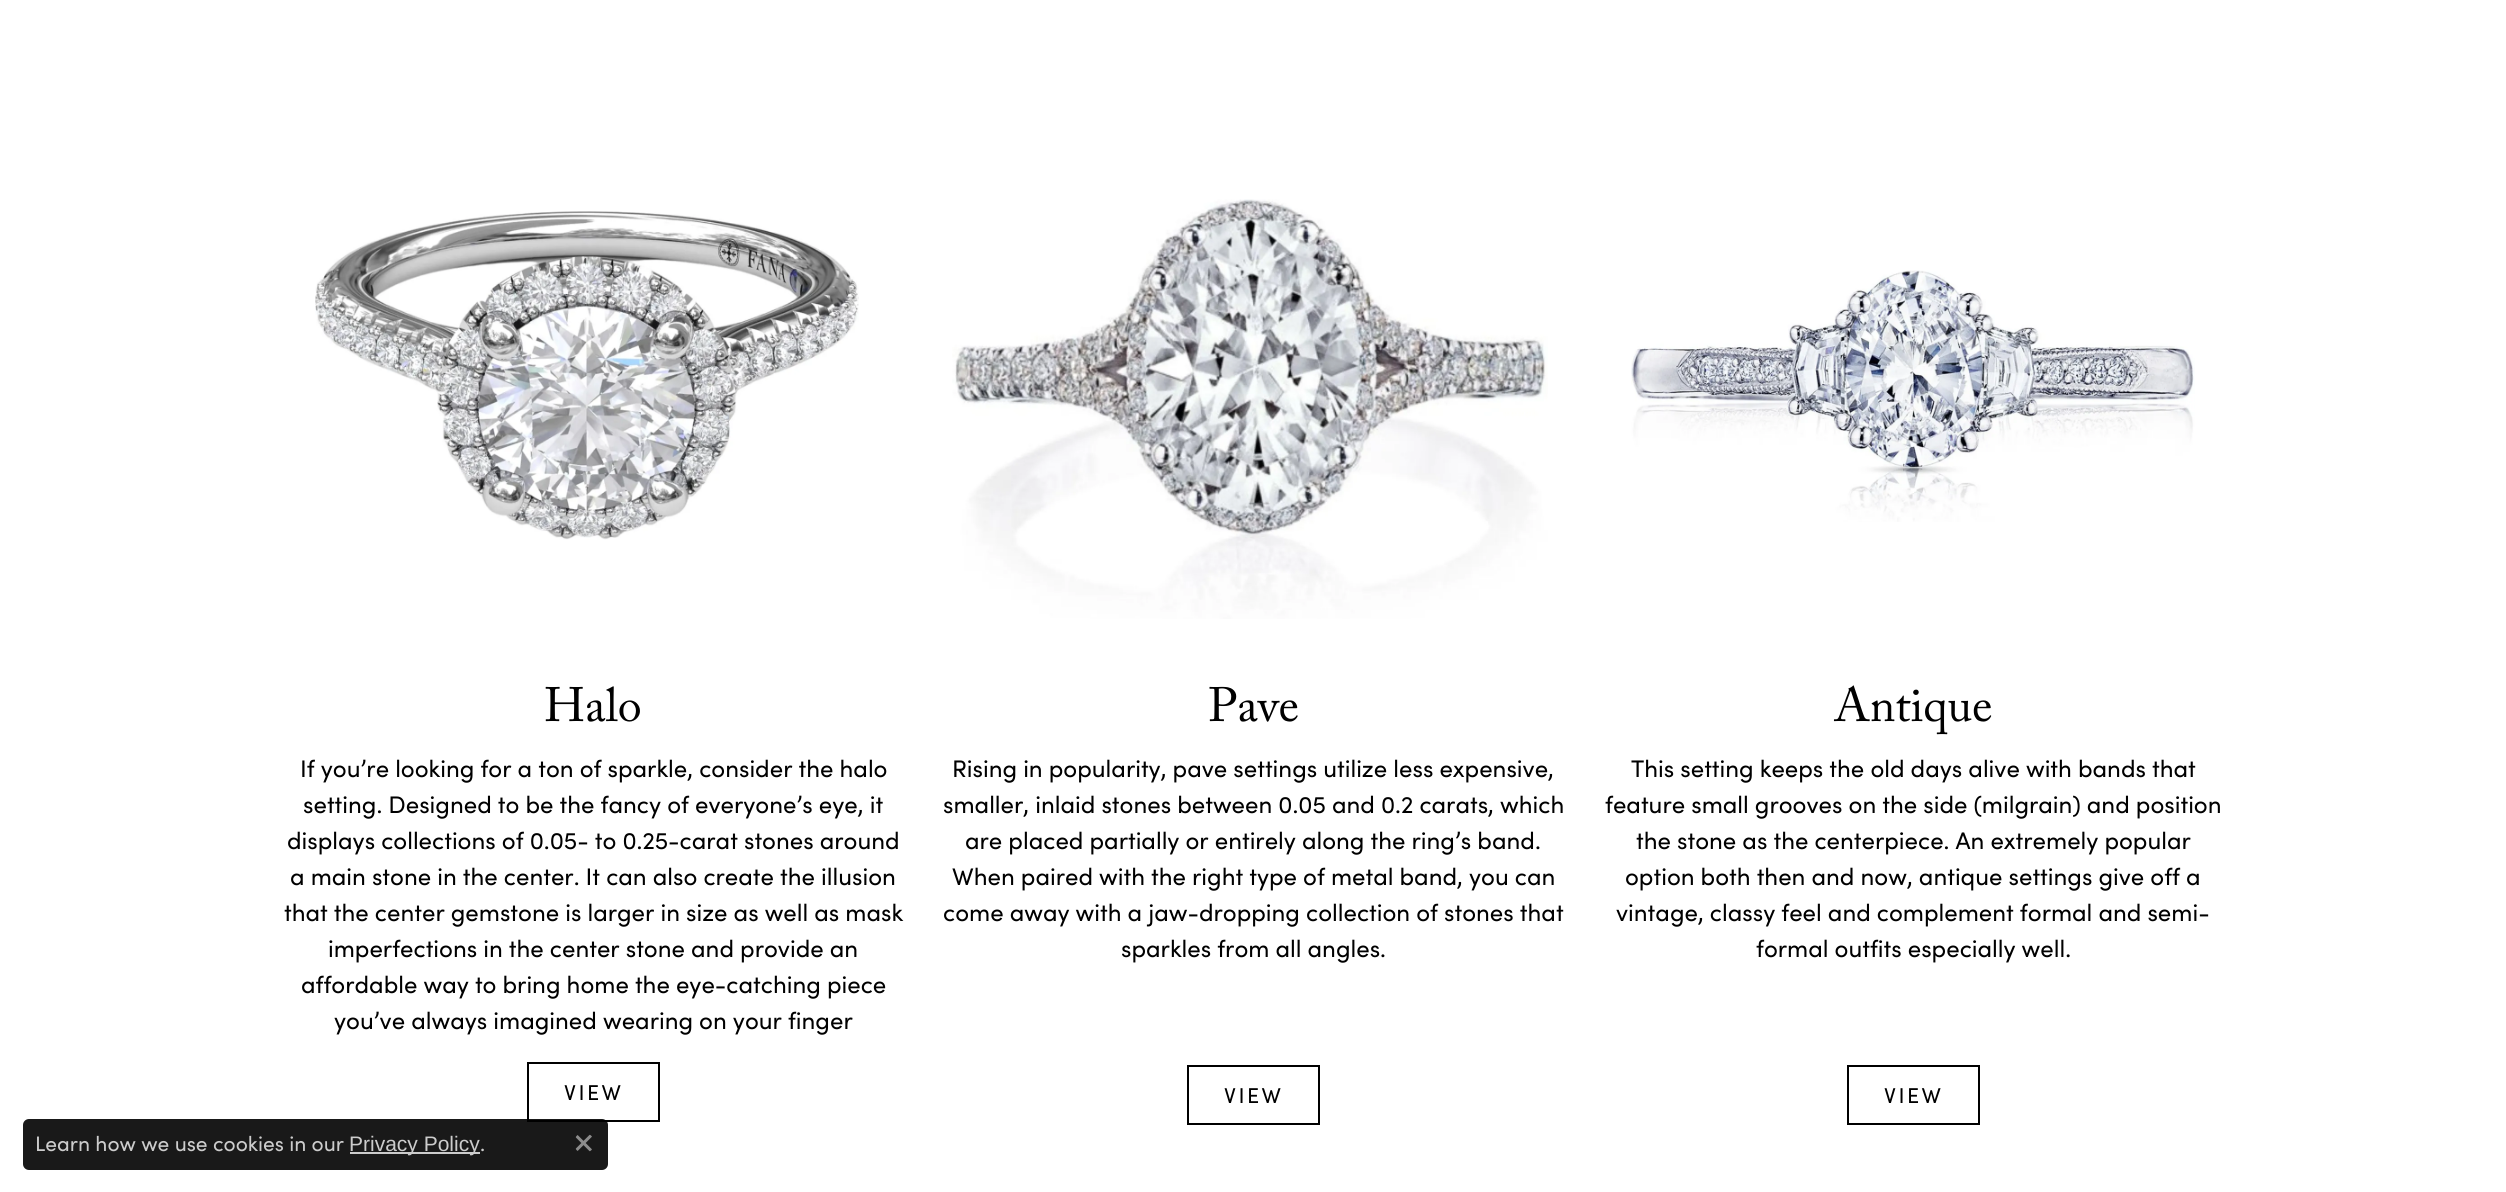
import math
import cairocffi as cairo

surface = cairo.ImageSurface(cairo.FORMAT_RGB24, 2506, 1192)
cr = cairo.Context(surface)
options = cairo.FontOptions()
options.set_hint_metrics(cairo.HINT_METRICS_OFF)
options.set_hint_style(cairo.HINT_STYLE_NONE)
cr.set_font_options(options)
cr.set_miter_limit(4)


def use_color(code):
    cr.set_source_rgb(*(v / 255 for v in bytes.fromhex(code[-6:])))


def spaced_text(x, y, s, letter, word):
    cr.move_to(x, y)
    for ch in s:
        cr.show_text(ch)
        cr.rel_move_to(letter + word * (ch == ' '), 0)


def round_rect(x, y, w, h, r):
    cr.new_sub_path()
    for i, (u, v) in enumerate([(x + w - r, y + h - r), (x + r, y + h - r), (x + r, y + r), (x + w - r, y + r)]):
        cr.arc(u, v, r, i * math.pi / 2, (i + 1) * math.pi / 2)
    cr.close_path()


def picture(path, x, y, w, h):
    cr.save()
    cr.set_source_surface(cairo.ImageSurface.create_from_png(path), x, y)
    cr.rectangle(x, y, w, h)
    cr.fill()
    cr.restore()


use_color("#ffffff")
cr.paint()
picture("img1.png", 315, 211, 544, 329)
cr.select_font_face("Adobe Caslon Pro")
cr.set_font_size(48)
use_color("#000000")
cr.move_to(544, 721)
cr.show_text("Halo")
cr.select_font_face("Sofia")
cr.set_font_size(24)
cr.move_to(300, 777)
cr.show_text("If you’re looking for a ton of sparkle, consider the halo")
cr.move_to(303, 813)
cr.show_text("setting. Designed to be the fancy of everyone’s eye, it")
cr.move_to(287, 849)
cr.show_text("displays collections of 0.05- to 0.25-carat stones around")
cr.move_to(290, 885)
cr.show_text("a main stone in the center. It can also create the illusion")
cr.move_to(284, 921)
cr.show_text("that the center gemstone is larger in size as well as mask")
cr.move_to(328, 957)
cr.show_text("imperfections in the center stone and provide an")
cr.move_to(301, 993)
cr.show_text("affordable way to bring home the eye-catching piece")
cr.move_to(334, 1029)
cr.show_text("you’ve always imagined wearing on your finger")
cr.rectangle(528, 1063, 131, 58)
cr.stroke()
cr.set_font_size(21.5)
spaced_text(564, 1100, "VIEW", 2.5, 0)
picture("img2.png", 952, 199, 596, 420)
cr.select_font_face("Adobe Caslon Pro")
cr.set_font_size(48)
cr.move_to(1208, 721)
cr.show_text("Pave")
cr.select_font_face("Sofia")
cr.set_font_size(24)
cr.move_to(952, 777)
cr.show_text("Rising in popularity, pave settings utilize less expensive,")
cr.move_to(943, 813)
cr.show_text("smaller, inlaid stones between 0.05 and 0.2 carats, which")
cr.move_to(965, 849)
cr.show_text("are placed partially or entirely along the ring’s band.")
cr.move_to(952, 885)
cr.show_text("When paired with the right type of metal band, you can")
cr.move_to(943, 921)
cr.show_text("come away with a jaw-dropping collection of stones that")
cr.move_to(1121, 957)
cr.show_text("sparkles from all angles.")
cr.rectangle(1188, 1066, 131, 58)
cr.stroke()
cr.set_font_size(21.5)
spaced_text(1224, 1103, "VIEW", 2.5, 0)
picture("img3.png", 1631, 270, 564, 252)
cr.select_font_face("Adobe Caslon Pro")
cr.set_font_size(48)
cr.move_to(1834, 721)
cr.show_text("Antique")
cr.select_font_face("Sofia")
cr.set_font_size(24)
cr.move_to(1631, 777)
cr.show_text("This setting keeps the old days alive with bands that")
cr.move_to(1605, 813)
cr.show_text("feature small grooves on the side (milgrain) and position")
cr.move_to(1636, 849)
cr.show_text("the stone as the centerpiece. An extremely popular")
cr.move_to(1625, 885)
cr.show_text("option both then and now, antique settings give off a")
cr.move_to(1616, 921)
cr.show_text("vintage, classy feel and complement formal and semi-")
cr.move_to(1756, 957)
cr.show_text("formal outfits especially well.")
cr.rectangle(1848, 1066, 131, 58)
cr.stroke()
cr.set_font_size(21.5)
spaced_text(1884, 1103, "VIEW", 2.5, 0)
cr.set_source_rgba(0, 0, 0, 0.9)
round_rect(23, 1119, 585, 51, 6)
cr.fill()
cr.set_font_size(21)
use_color("#cccccc")
cr.move_to(35, 1151)
cr.show_text("Learn how we use cookies in our")
cr.rectangle(350, 1152, 130, 2)
cr.fill()
cr.select_font_face("Liberation Sans")
cr.move_to(349, 1151)
cr.show_text("Privacy Policy")
cr.select_font_face("Sofia")
cr.move_to(480, 1151)
cr.show_text(".")
picture("img4.png", 575, 1134, 17, 18)
surface.write_to_png("result.png")
